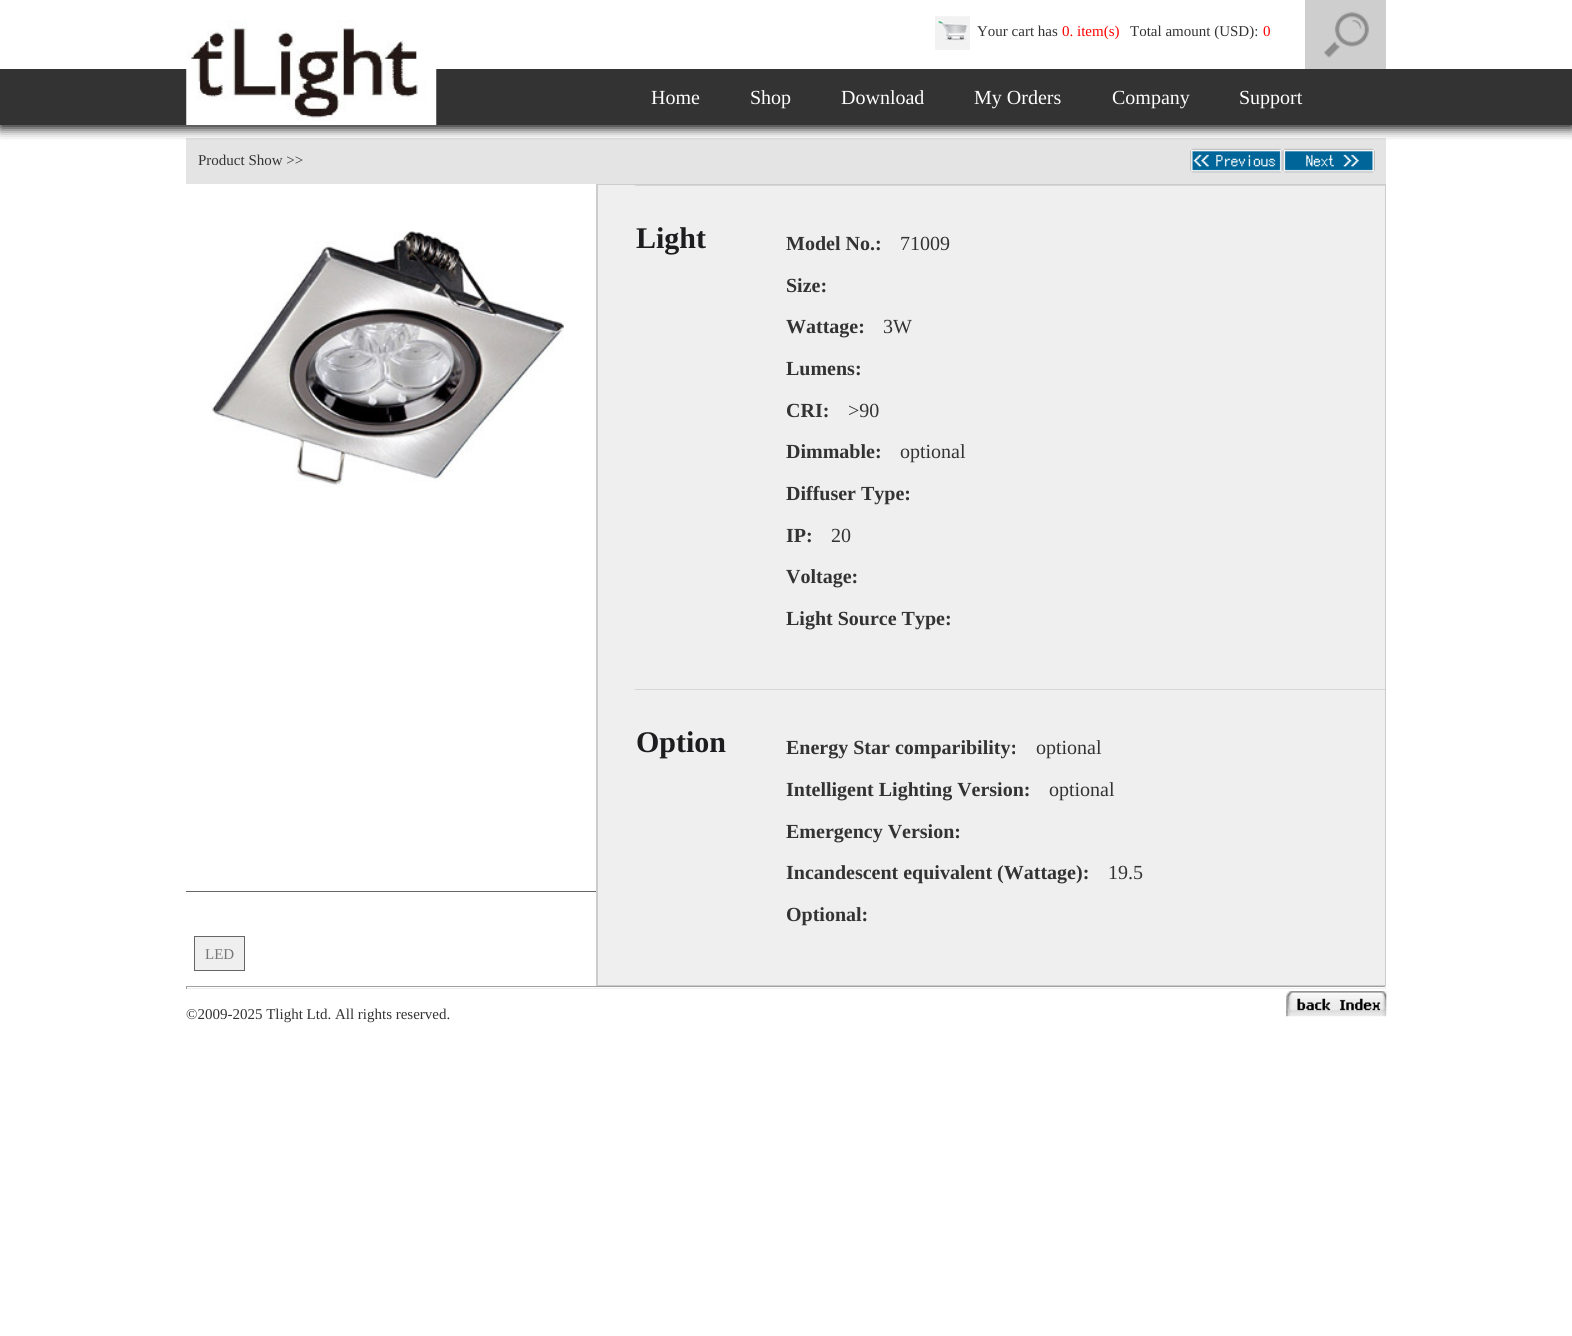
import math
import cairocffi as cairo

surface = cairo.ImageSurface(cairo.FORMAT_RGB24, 1572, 1336)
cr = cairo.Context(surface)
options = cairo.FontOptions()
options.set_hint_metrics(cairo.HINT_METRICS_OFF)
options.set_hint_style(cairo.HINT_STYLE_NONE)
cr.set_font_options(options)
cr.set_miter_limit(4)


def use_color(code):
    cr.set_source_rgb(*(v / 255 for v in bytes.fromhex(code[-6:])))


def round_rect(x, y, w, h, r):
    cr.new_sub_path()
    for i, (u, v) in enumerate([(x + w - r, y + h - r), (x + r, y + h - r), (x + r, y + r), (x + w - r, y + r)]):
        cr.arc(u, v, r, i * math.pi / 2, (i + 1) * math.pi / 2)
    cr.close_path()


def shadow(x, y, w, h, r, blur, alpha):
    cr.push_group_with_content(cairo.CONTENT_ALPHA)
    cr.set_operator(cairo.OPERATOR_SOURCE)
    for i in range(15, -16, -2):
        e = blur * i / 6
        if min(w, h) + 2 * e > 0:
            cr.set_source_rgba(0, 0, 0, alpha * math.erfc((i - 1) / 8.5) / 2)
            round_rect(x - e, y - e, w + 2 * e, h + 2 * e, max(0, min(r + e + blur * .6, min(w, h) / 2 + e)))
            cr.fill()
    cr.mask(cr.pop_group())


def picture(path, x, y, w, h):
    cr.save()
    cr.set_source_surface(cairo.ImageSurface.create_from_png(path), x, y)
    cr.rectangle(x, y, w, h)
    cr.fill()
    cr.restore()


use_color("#ffffff")
cr.paint()
use_color("#e4e4e4")
cr.rectangle(186, 138, 1200, 46)
cr.fill()
cr.save()
cr.rectangle(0, 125, 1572, 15)
cr.clip()
use_color("#000000")
shadow(0, 3, 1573, 125, 0, 6, 1)
cr.restore()
use_color("#333333")
cr.rectangle(0, 69, 1572, 56)
cr.fill()
picture("img1.png", 186, 20, 251, 105)
picture("img2.png", 935, 16, 35, 34)
cr.select_font_face("Liberation Serif")
cr.set_font_size(15)
cr.move_to(977, 36)
cr.show_text("Your cart has")
use_color("#ff0000")
cr.move_to(1062, 36)
cr.show_text("0. item(s)")
use_color("#333333")
cr.move_to(1130, 36)
cr.show_text("Total amount (USD):")
use_color("#ff0000")
cr.move_to(1263, 36)
cr.show_text("0")
use_color("#cecece")
cr.rectangle(1305, 0, 81, 69)
cr.fill()
picture("img3.png", 1323, 12, 46, 46)
cr.set_font_size(20)
use_color("#ffffff")
cr.move_to(651, 104)
cr.show_text("Home")
cr.move_to(750, 104)
cr.show_text("Shop")
cr.move_to(841, 104)
cr.show_text("Download")
cr.move_to(974, 104)
cr.show_text("My Orders")
cr.move_to(1112, 104)
cr.show_text("Company")
cr.move_to(1239, 104)
cr.show_text("Support")
cr.set_font_size(15)
use_color("#333333")
cr.move_to(198, 165)
cr.show_text("Product Show >>")
picture("img4.png", 1190, 148, 93, 25)
picture("img5.png", 1282, 148, 93, 25)
picture("img6.png", 210, 231, 354, 256)
use_color("#cccccc")
cr.rectangle(596, 184, 790, 802)
cr.fill()
use_color("#efefef")
cr.rectangle(598, 185, 787, 800)
cr.fill()
use_color("#d6d6d6")
cr.rectangle(635, 185, 750, 1)
cr.fill()
cr.select_font_face("Liberation Serif", cairo.FONT_SLANT_NORMAL, cairo.FONT_WEIGHT_BOLD)
cr.set_font_size(30)
use_color("#1d1d1f")
cr.move_to(636, 248)
cr.show_text("Light")
cr.set_font_size(20)
use_color("#333333")
cr.move_to(786, 250)
cr.show_text("Model No.:")
cr.select_font_face("Liberation Serif")
cr.move_to(900, 250)
cr.show_text("71009")
cr.select_font_face("Liberation Serif", cairo.FONT_SLANT_NORMAL, cairo.FONT_WEIGHT_BOLD)
cr.move_to(786, 292)
cr.show_text("Size:")
cr.move_to(786, 333)
cr.show_text("Wattage:")
cr.select_font_face("Liberation Serif")
cr.move_to(883, 333)
cr.show_text("3W")
cr.select_font_face("Liberation Serif", cairo.FONT_SLANT_NORMAL, cairo.FONT_WEIGHT_BOLD)
cr.move_to(786, 375)
cr.show_text("Lumens:")
cr.move_to(786, 417)
cr.show_text("CRI:")
cr.select_font_face("Liberation Serif")
cr.move_to(848, 417)
cr.show_text(">90")
cr.select_font_face("Liberation Serif", cairo.FONT_SLANT_NORMAL, cairo.FONT_WEIGHT_BOLD)
cr.move_to(786, 458)
cr.show_text("Dimmable:")
cr.select_font_face("Liberation Serif")
cr.move_to(900, 458)
cr.show_text("optional")
cr.select_font_face("Liberation Serif", cairo.FONT_SLANT_NORMAL, cairo.FONT_WEIGHT_BOLD)
cr.move_to(786, 500)
cr.show_text("Diffuser Type:")
cr.move_to(786, 542)
cr.show_text("IP:")
cr.select_font_face("Liberation Serif")
cr.move_to(831, 542)
cr.show_text("20")
cr.select_font_face("Liberation Serif", cairo.FONT_SLANT_NORMAL, cairo.FONT_WEIGHT_BOLD)
cr.move_to(786, 583)
cr.show_text("Voltage:")
cr.move_to(786, 625)
cr.show_text("Light Source Type:")
use_color("#d6d6d6")
cr.rectangle(635, 689, 750, 1)
cr.fill()
cr.set_font_size(30)
use_color("#1d1d1f")
cr.move_to(636, 752)
cr.show_text("Option")
cr.set_font_size(20)
use_color("#333333")
cr.move_to(786, 754)
cr.show_text("Energy Star comparibility:")
cr.select_font_face("Liberation Serif")
cr.move_to(1036, 754)
cr.show_text("optional")
cr.select_font_face("Liberation Serif", cairo.FONT_SLANT_NORMAL, cairo.FONT_WEIGHT_BOLD)
cr.move_to(786, 796)
cr.show_text("Intelligent Lighting Version:")
cr.select_font_face("Liberation Serif")
cr.move_to(1049, 796)
cr.show_text("optional")
cr.select_font_face("Liberation Serif", cairo.FONT_SLANT_NORMAL, cairo.FONT_WEIGHT_BOLD)
cr.move_to(786, 838)
cr.show_text("Emergency Version:")
cr.move_to(786, 879)
cr.show_text("Incandescent equivalent (Wattage):")
cr.select_font_face("Liberation Serif")
cr.move_to(1108, 879)
cr.show_text("19.5")
cr.select_font_face("Liberation Serif", cairo.FONT_SLANT_NORMAL, cairo.FONT_WEIGHT_BOLD)
cr.move_to(786, 921)
cr.show_text("Optional:")
use_color("#666666")
cr.rectangle(186, 891, 410, 1)
cr.fill()
use_color("#efefef")
cr.rectangle(194.5, 936.5, 50, 34)
cr.fill_preserve()
use_color("#666666")
cr.set_line_width(1)
cr.stroke()
cr.select_font_face("Liberation Serif")
cr.set_font_size(15)
use_color("#777777")
cr.move_to(205, 959)
cr.show_text("LED")
use_color("#9f9f9f")
cr.rectangle(186, 986, 1200, 1)
cr.fill()
use_color("#eeeeee")
cr.rectangle(1385, 986, 1, 3)
cr.fill()
cr.rectangle(186, 988, 1200, 1)
cr.fill()
use_color("#9f9f9f")
cr.rectangle(186, 986, 1, 3)
cr.fill()
use_color("#333333")
cr.move_to(186, 1019)
cr.show_text("©2009-2025 Tlight Ltd. All rights reserved.")
picture("img7.png", 1286, 991, 101, 26)
surface.write_to_png("result.png")
